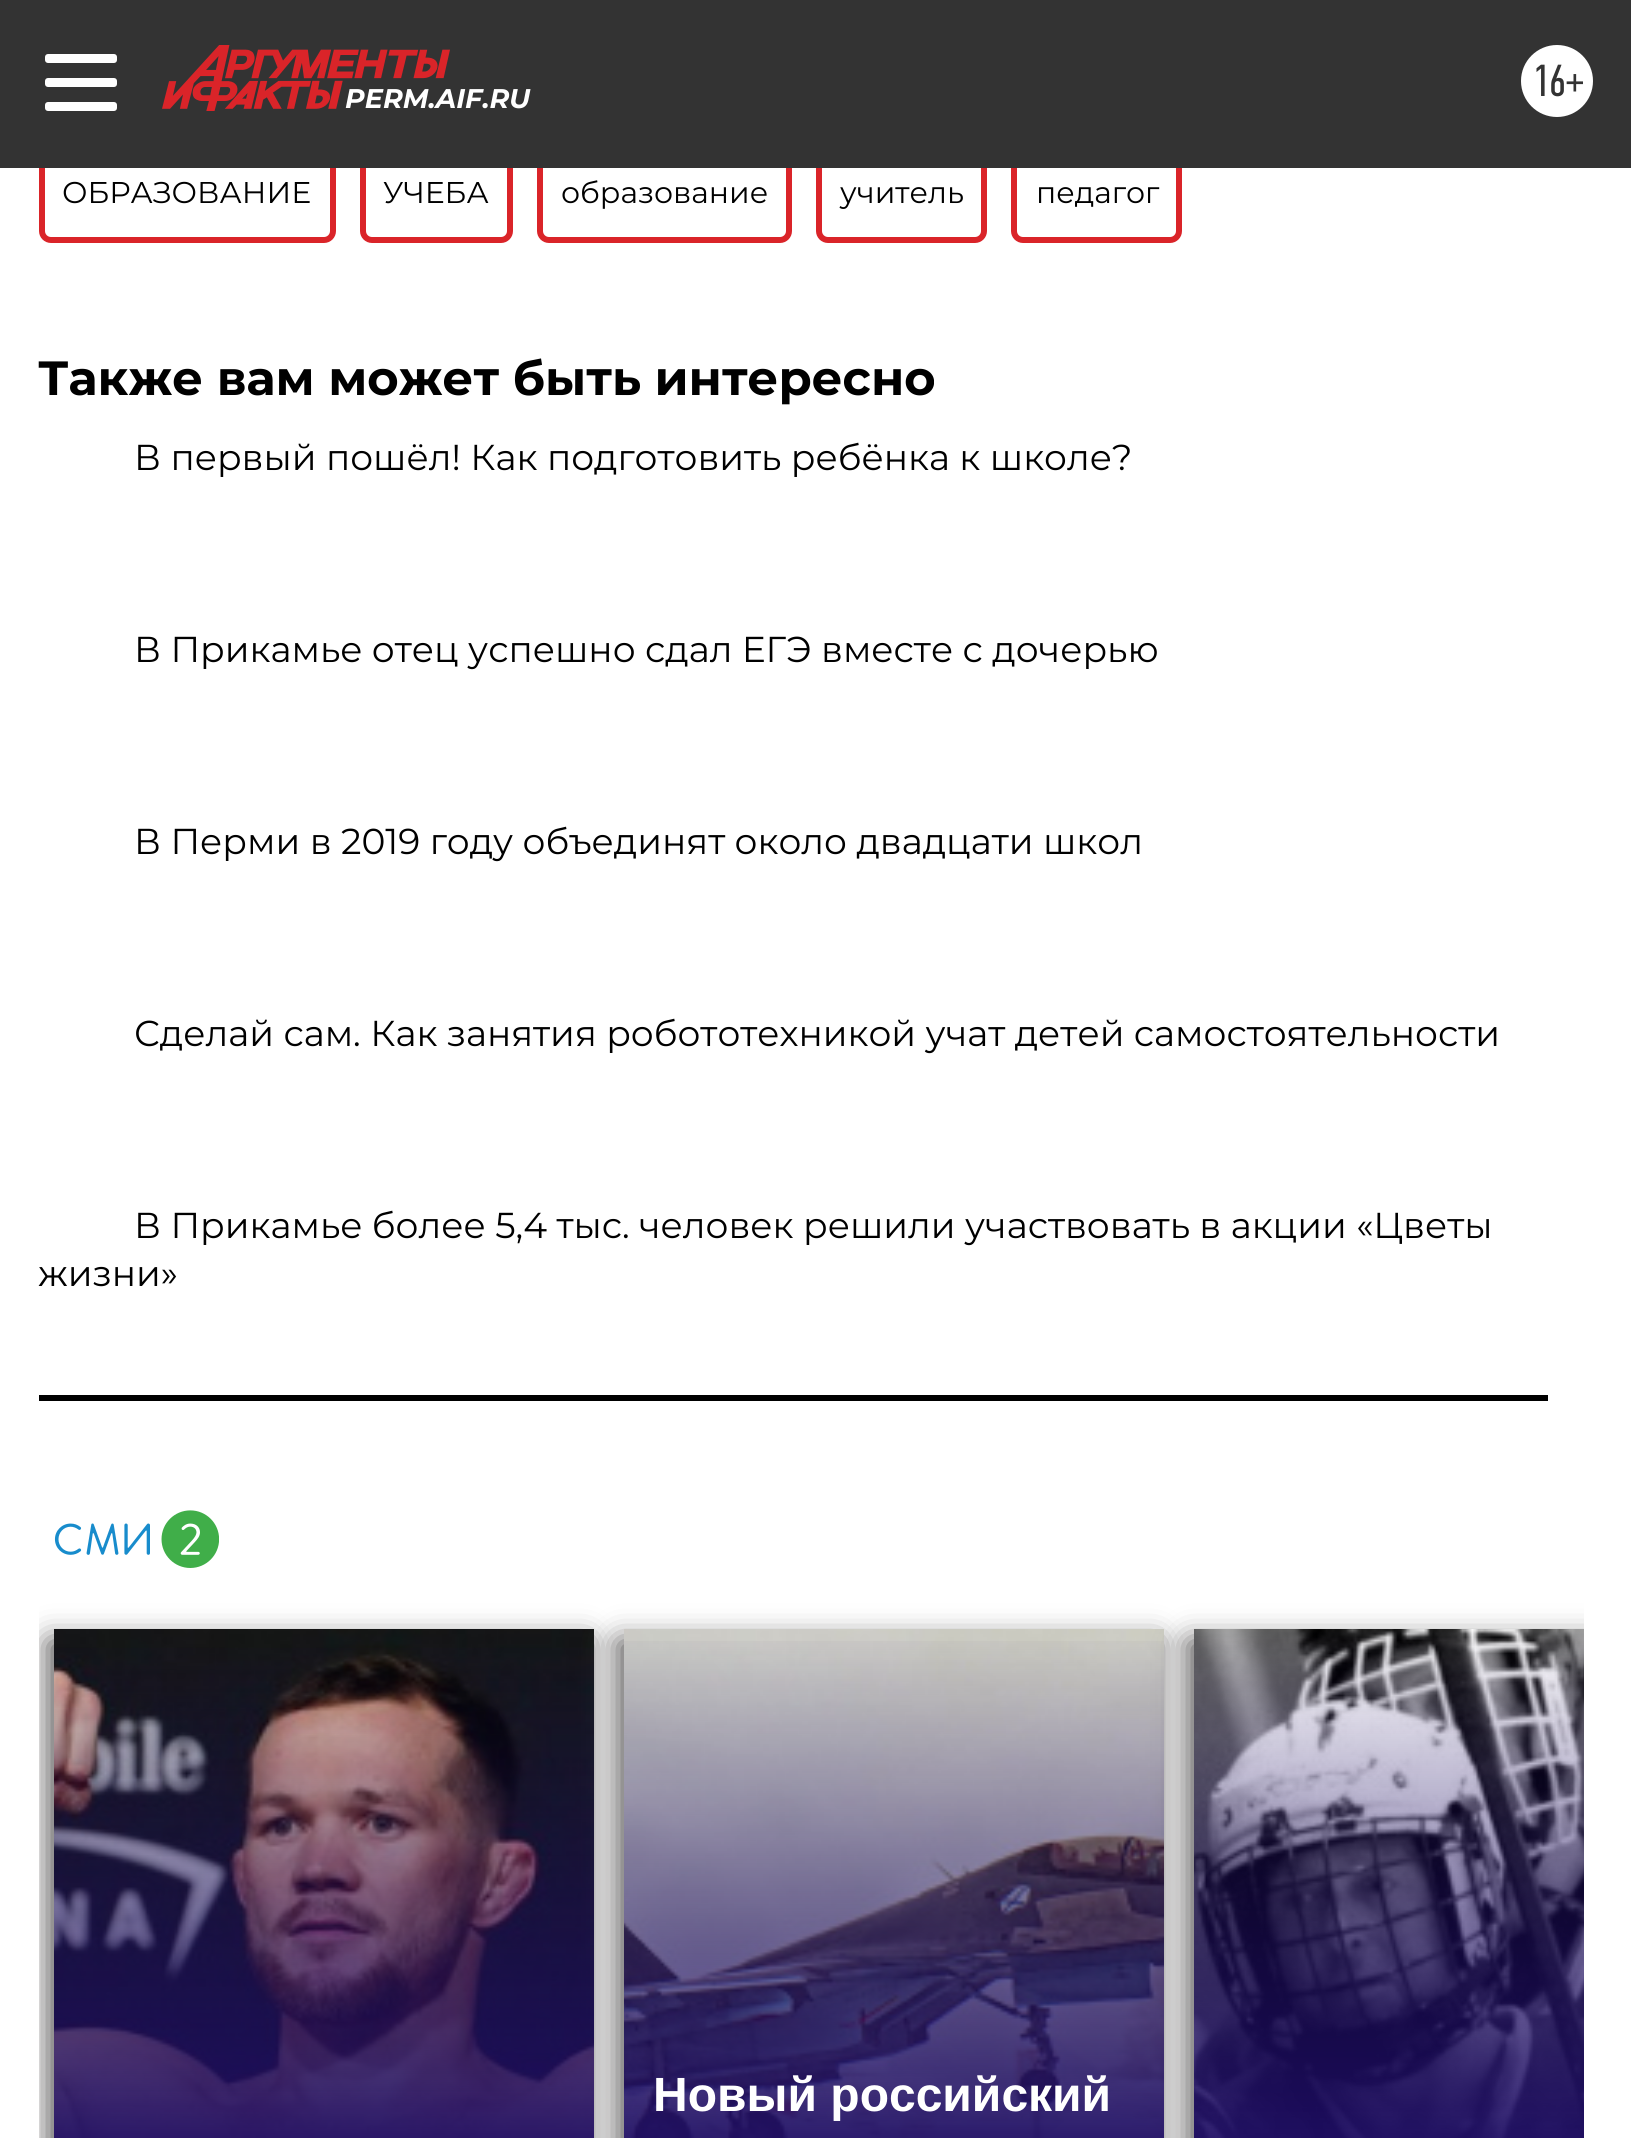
import math
import cairocffi as cairo

surface = cairo.ImageSurface(cairo.FORMAT_RGB24, 1631, 2138)
cr = cairo.Context(surface)
options = cairo.FontOptions()
options.set_hint_metrics(cairo.HINT_METRICS_OFF)
options.set_hint_style(cairo.HINT_STYLE_NONE)
cr.set_font_options(options)
cr.set_miter_limit(4)


def use_color(code):
    cr.set_source_rgb(*(v / 255 for v in bytes.fromhex(code[-6:])))


def round_rect(x, y, w, h, r):
    cr.new_sub_path()
    for i, (u, v) in enumerate([(x + w - r, y + h - r), (x + r, y + h - r), (x + r, y + r), (x + w - r, y + r)]):
        cr.arc(u, v, r, i * math.pi / 2, (i + 1) * math.pi / 2)
    cr.close_path()


def shadow(x, y, w, h, r, blur, alpha):
    cr.push_group_with_content(cairo.CONTENT_ALPHA)
    cr.set_operator(cairo.OPERATOR_SOURCE)
    for i in range(15, -16, -2):
        e = blur * i / 6
        if min(w, h) + 2 * e > 0:
            cr.set_source_rgba(0, 0, 0, alpha * math.erfc((i - 1) / 8.5) / 2)
            round_rect(x - e, y - e, w + 2 * e, h + 2 * e, max(0, min(r + e + blur * .6, min(w, h) / 2 + e)))
            cr.fill()
    cr.mask(cr.pop_group())


def picture(path, x, y, w, h):
    cr.save()
    cr.set_source_surface(cairo.ImageSurface.create_from_png(path), x, y)
    cr.rectangle(x, y, w, h)
    cr.fill()
    cr.restore()


use_color("#ffffff")
cr.paint()
round_rect(42, 153, 291, 87, 9)
use_color("#da2429")
cr.set_line_width(6)
cr.stroke()
round_rect(363, 153, 147, 87, 9)
cr.stroke()
round_rect(540, 153, 249, 87, 9)
cr.stroke()
round_rect(819, 153, 165, 87, 9)
cr.stroke()
round_rect(1014, 153, 165, 87, 9)
cr.stroke()
use_color("#333333")
cr.rectangle(0, 0, 1631, 168)
cr.fill()
use_color("#ffffff")
round_rect(45, 54, 72, 9, 3)
cr.fill()
round_rect(45, 78, 72, 9, 3)
cr.fill()
round_rect(45, 102, 72, 9, 3)
cr.fill()
cr.arc(1557, 81, 36, 0, 2 * math.pi)
cr.fill()
cr.select_font_face("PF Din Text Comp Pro")
cr.set_font_size(45)
use_color("#333333")
cr.move_to(1532, 96)
cr.show_text("16+")
picture("img1.png", 162, 45, 288, 66)
cr.select_font_face("Montserrat", cairo.FONT_SLANT_ITALIC, cairo.FONT_WEIGHT_BOLD)
cr.set_font_size(27)
use_color("#ffffff")
cr.move_to(345, 108)
cr.show_text("PERM.AIF.RU")
cr.select_font_face("Montserrat")
cr.set_font_size(30)
use_color("#000000")
cr.move_to(62, 203)
cr.show_text("ОБРАЗОВАНИЕ")
cr.move_to(383, 203)
cr.show_text("УЧЕБА")
cr.move_to(561, 203)
cr.show_text("образование")
cr.move_to(840, 203)
cr.show_text("учитель")
cr.move_to(1036, 203)
cr.show_text("педагог")
cr.select_font_face("Montserrat", cairo.FONT_SLANT_NORMAL, cairo.FONT_WEIGHT_BOLD)
cr.set_font_size(48)
cr.move_to(38, 395)
cr.show_text("Также вам может быть интересно")
cr.rectangle(39, 1395, 1509, 6)
cr.fill()
cr.select_font_face("Montserrat")
cr.set_font_size(36)
cr.move_to(134, 470)
cr.show_text("В первый пошёл! Как подготовить ребёнка к школе?")
cr.move_to(134, 662)
cr.show_text("В Прикамье отец успешно сдал ЕГЭ вместе с дочерью")
cr.move_to(134, 854)
cr.show_text("В Перми в 2019 году объединят около двадцати школ")
cr.move_to(134, 1046)
cr.show_text("Сделай сам. Как занятия робототехникой учат детей самостоятельности")
cr.move_to(134, 1238)
cr.show_text("В Прикамье более 5,4 тыс. человек решили участвовать в акции «Цветы")
cr.move_to(38, 1286)
cr.show_text("жизни»")
picture("img2.png", 54, 1510, 165, 58)
cr.save()
cr.rectangle(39, 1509, 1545, 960)
cr.clip()
use_color("#565454")
shadow(48, 1641, 540, 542, 0, 15, 1)
cr.restore()
picture("img3.png", 54, 1629, 540, 509)
use_color("#565454")
shadow(618, 1641, 540, 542, 0, 15, 1)
gradient = cairo.LinearGradient(324, 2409, 324, 1629)
gradient.add_color_stop_rgba(0.3, 0.118, 0.051, 0.392, 1)
gradient.add_color_stop_rgba(1, 0.118, 0.051, 0.392, 0)
cr.set_source(gradient)
cr.rectangle(54, 1648, 540, 490)
cr.fill()
picture("img4.png", 624, 1629, 540, 509)
cr.save()
cr.rectangle(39, 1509, 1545, 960)
cr.clip()
use_color("#565454")
shadow(1188, 1641, 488, 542, 0, 15, 1)
cr.restore()
gradient = cairo.LinearGradient(894, 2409, 894, 1629)
gradient.add_color_stop_rgba(0.3, 0.118, 0.051, 0.392, 1)
gradient.add_color_stop_rgba(1, 0.118, 0.051, 0.392, 0)
cr.set_source(gradient)
cr.rectangle(624, 1641, 540, 497)
cr.fill()
cr.select_font_face("Liberation Sans", cairo.FONT_SLANT_NORMAL, cairo.FONT_WEIGHT_BOLD)
cr.set_font_size(48)
use_color("#ffffff")
cr.move_to(653, 2111)
cr.show_text("Новый российский")
picture("img5.png", 1194, 1629, 390, 509)
surface.write_to_png("result.png")
